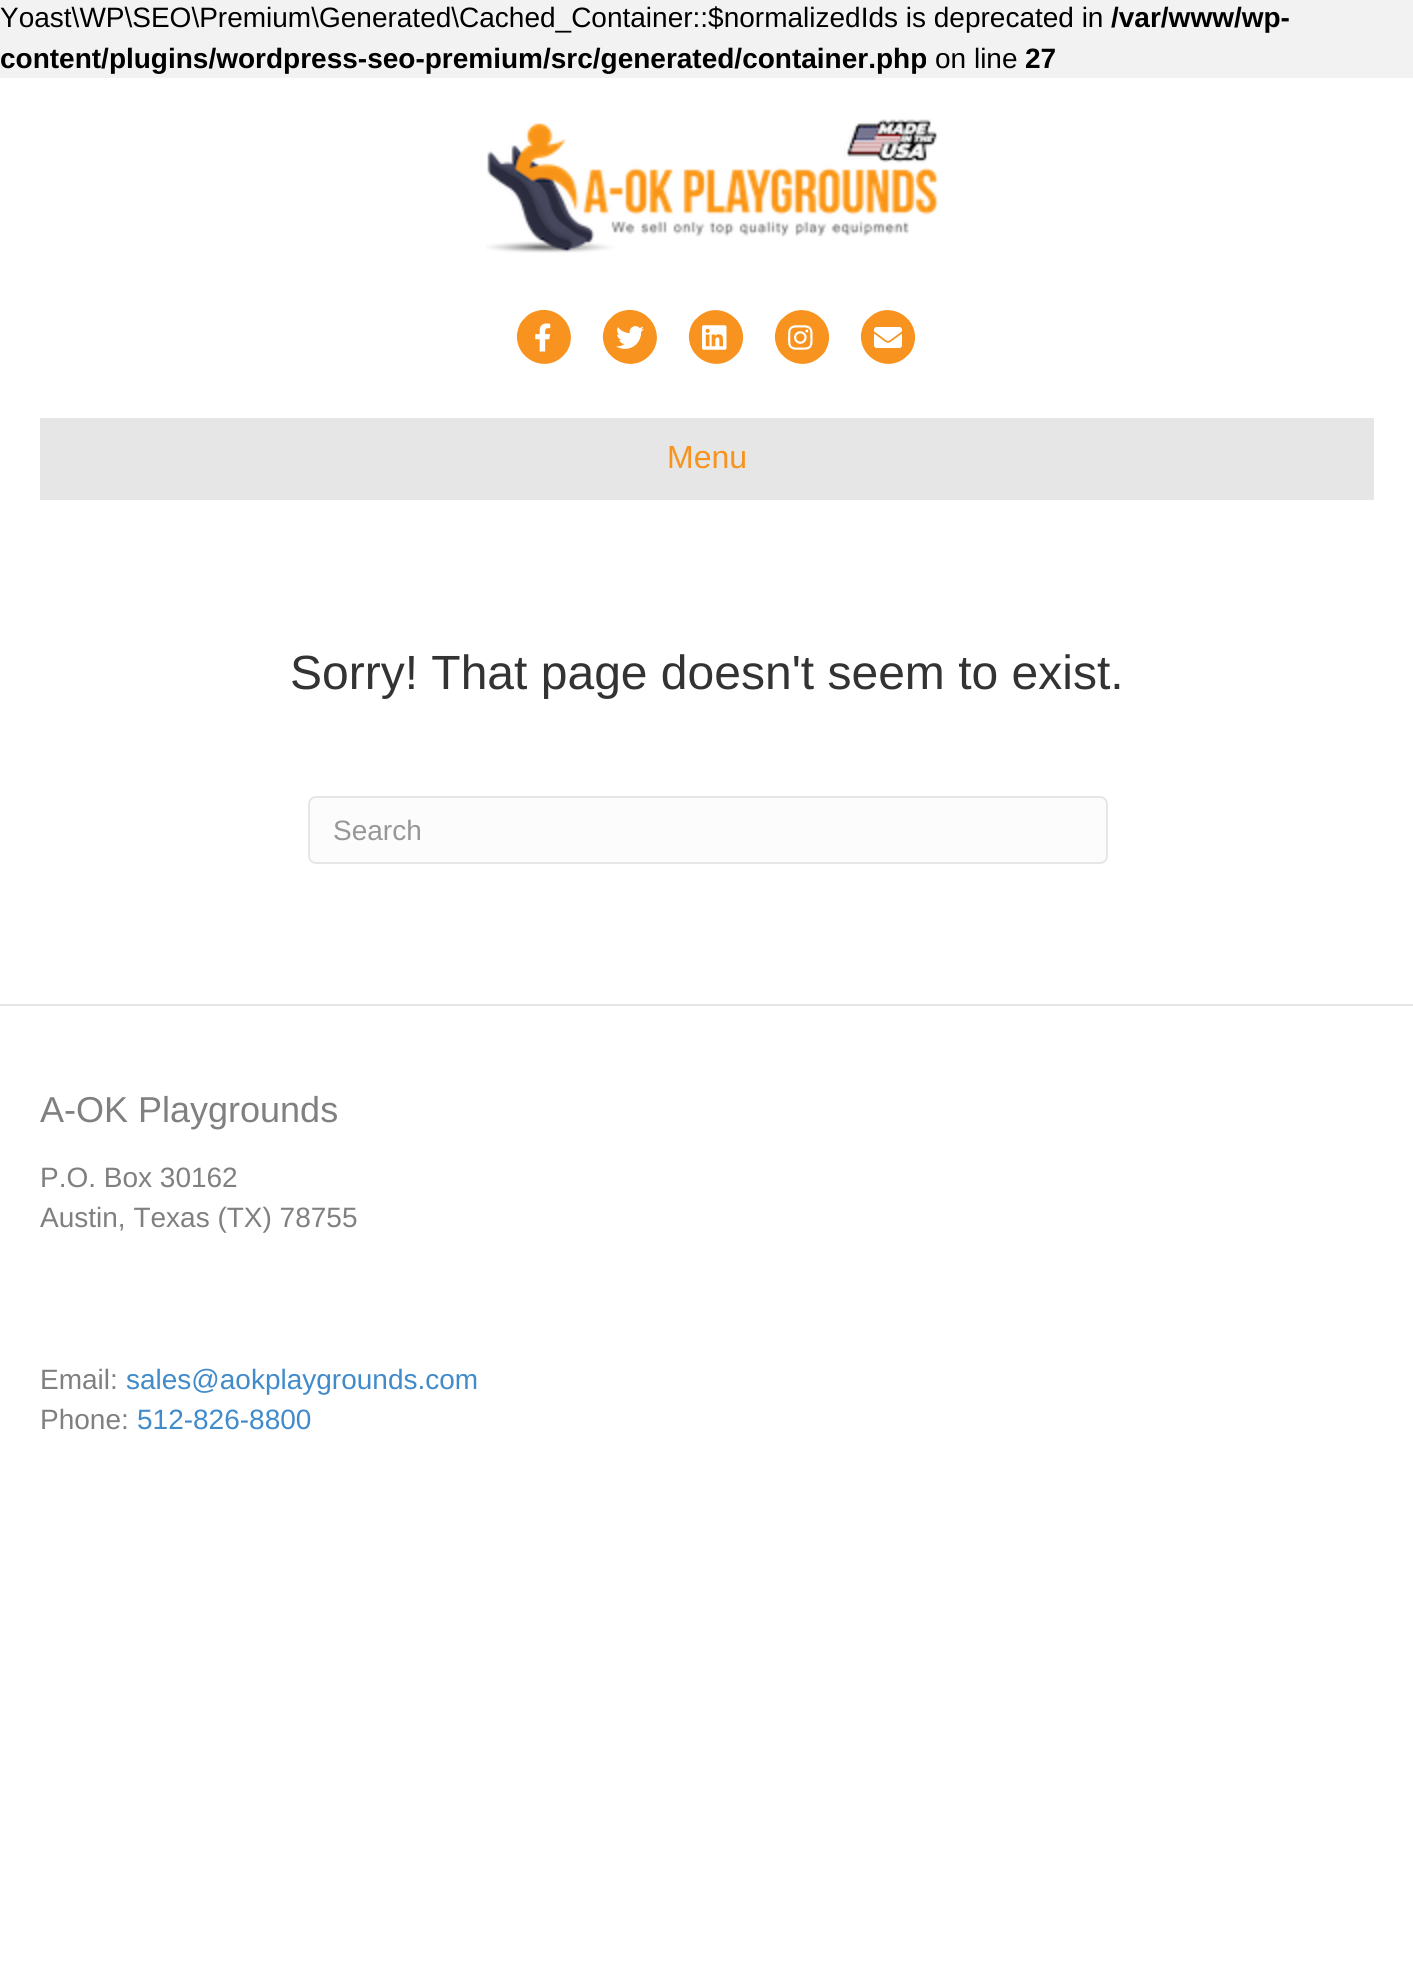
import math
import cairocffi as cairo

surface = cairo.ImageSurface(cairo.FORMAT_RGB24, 1413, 1968)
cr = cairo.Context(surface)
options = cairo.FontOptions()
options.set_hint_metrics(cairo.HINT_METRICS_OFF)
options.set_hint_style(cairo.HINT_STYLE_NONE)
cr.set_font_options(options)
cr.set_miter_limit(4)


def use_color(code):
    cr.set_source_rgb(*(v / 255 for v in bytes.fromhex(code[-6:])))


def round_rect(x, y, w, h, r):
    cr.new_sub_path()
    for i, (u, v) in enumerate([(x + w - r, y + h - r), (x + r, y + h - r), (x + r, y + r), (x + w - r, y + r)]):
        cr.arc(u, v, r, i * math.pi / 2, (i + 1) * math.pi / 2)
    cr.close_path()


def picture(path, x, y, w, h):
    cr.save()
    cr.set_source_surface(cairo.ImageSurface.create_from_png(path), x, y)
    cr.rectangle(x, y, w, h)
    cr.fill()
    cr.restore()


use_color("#f2f2f2")
cr.paint()
cr.select_font_face("Liberation Sans")
cr.set_font_size(28)
use_color("#000000")
cr.move_to(0, 27)
cr.show_text("Yoast\\WP\\SEO\\Premium\\Generated\\Cached_Container::$normalizedIds is deprecated in")
cr.select_font_face("Liberation Sans", cairo.FONT_SLANT_NORMAL, cairo.FONT_WEIGHT_BOLD)
cr.move_to(1111, 27)
cr.show_text("/var/www/wp-")
cr.move_to(0, 68)
cr.show_text("content/plugins/wordpress-seo-premium/src/generated/container.php")
cr.select_font_face("Liberation Sans")
cr.move_to(935, 68)
cr.show_text("on line")
cr.select_font_face("Liberation Sans", cairo.FONT_SLANT_NORMAL, cairo.FONT_WEIGHT_BOLD)
cr.move_to(1025, 68)
cr.show_text("27")
use_color("#ffffff")
cr.rectangle(0, 78, 1413, 926)
cr.fill()
picture("img1.png", 486, 119, 453, 134)
use_color("#f7931e")
cr.new_path()
cr.move_to(525, 318)
cr.curve_to(529, 313, 535, 311, 541, 310)
cr.curve_to(566, 308, 581, 338, 563, 356)
cr.curve_to(545, 374, 515, 359, 517, 334)
cr.curve_to(518, 328, 520, 322, 525, 318)
cr.close_path()
cr.fill()
picture("img2.png", 535, 323, 16, 29)
cr.new_path()
cr.move_to(611, 318)
cr.curve_to(615, 313, 621, 311, 627, 310)
cr.curve_to(652, 308, 667, 338, 649, 356)
cr.curve_to(631, 374, 601, 359, 603, 334)
cr.curve_to(604, 328, 606, 322, 611, 318)
cr.close_path()
cr.fill()
picture("img3.png", 616, 326, 28, 23)
cr.new_path()
cr.move_to(697, 318)
cr.curve_to(715, 300, 745, 315, 743, 340)
cr.curve_to(742, 346, 740, 352, 735, 356)
cr.curve_to(717, 374, 687, 359, 689, 334)
cr.curve_to(690, 328, 692, 322, 697, 318)
cr.close_path()
cr.fill()
picture("img4.png", 702, 325, 25, 25)
cr.new_path()
cr.move_to(783, 318)
cr.curve_to(801, 300, 831, 315, 829, 340)
cr.curve_to(828, 346, 826, 352, 821, 356)
cr.curve_to(803, 374, 773, 359, 775, 334)
cr.curve_to(776, 328, 778, 322, 783, 318)
cr.close_path()
cr.fill()
picture("img5.png", 788, 325, 25, 25)
cr.new_path()
cr.move_to(869, 318)
cr.curve_to(887, 300, 917, 315, 915, 340)
cr.curve_to(914, 346, 912, 352, 907, 356)
cr.curve_to(889, 374, 859, 359, 861, 334)
cr.curve_to(862, 328, 864, 322, 869, 318)
cr.close_path()
cr.fill()
picture("img6.png", 874, 327, 28, 21)
use_color("#e6e6e6")
cr.rectangle(40, 418, 1334, 82)
cr.fill()
cr.select_font_face("Liberation Sans")
cr.set_font_size(32)
use_color("#f7931e")
cr.move_to(667, 468)
cr.show_text("Menu")
cr.set_font_size(48)
use_color("#333333")
cr.move_to(290, 689)
cr.show_text("Sorry! That page doesn't seem to exist.")
use_color("#fcfcfc")
round_rect(309, 797, 798, 66, 7)
cr.fill_preserve()
use_color("#e6e6e6")
cr.stroke()
cr.set_font_size(28)
use_color("#979797")
cr.move_to(333, 840)
cr.show_text("Search")
use_color("#ffffff")
cr.rectangle(0, 1006, 1413, 962)
cr.fill()
use_color("#e6e6e6")
cr.rectangle(0, 1004, 1413, 2)
cr.fill()
cr.set_font_size(36)
use_color("#808080")
cr.move_to(40, 1122)
cr.show_text("A-OK Playgrounds")
cr.set_font_size(28)
cr.move_to(40, 1187)
cr.show_text("P.O. Box 30162")
cr.move_to(40, 1227)
cr.show_text("Austin, Texas (TX) 78755")
cr.move_to(40, 1389)
cr.show_text("Email:")
use_color("#428bca")
cr.move_to(126, 1389)
cr.show_text("sales@aokplaygrounds.com")
use_color("#808080")
cr.move_to(40, 1429)
cr.show_text("Phone:")
use_color("#428bca")
cr.move_to(137, 1429)
cr.show_text("512-826-8800")
surface.write_to_png("result.png")
